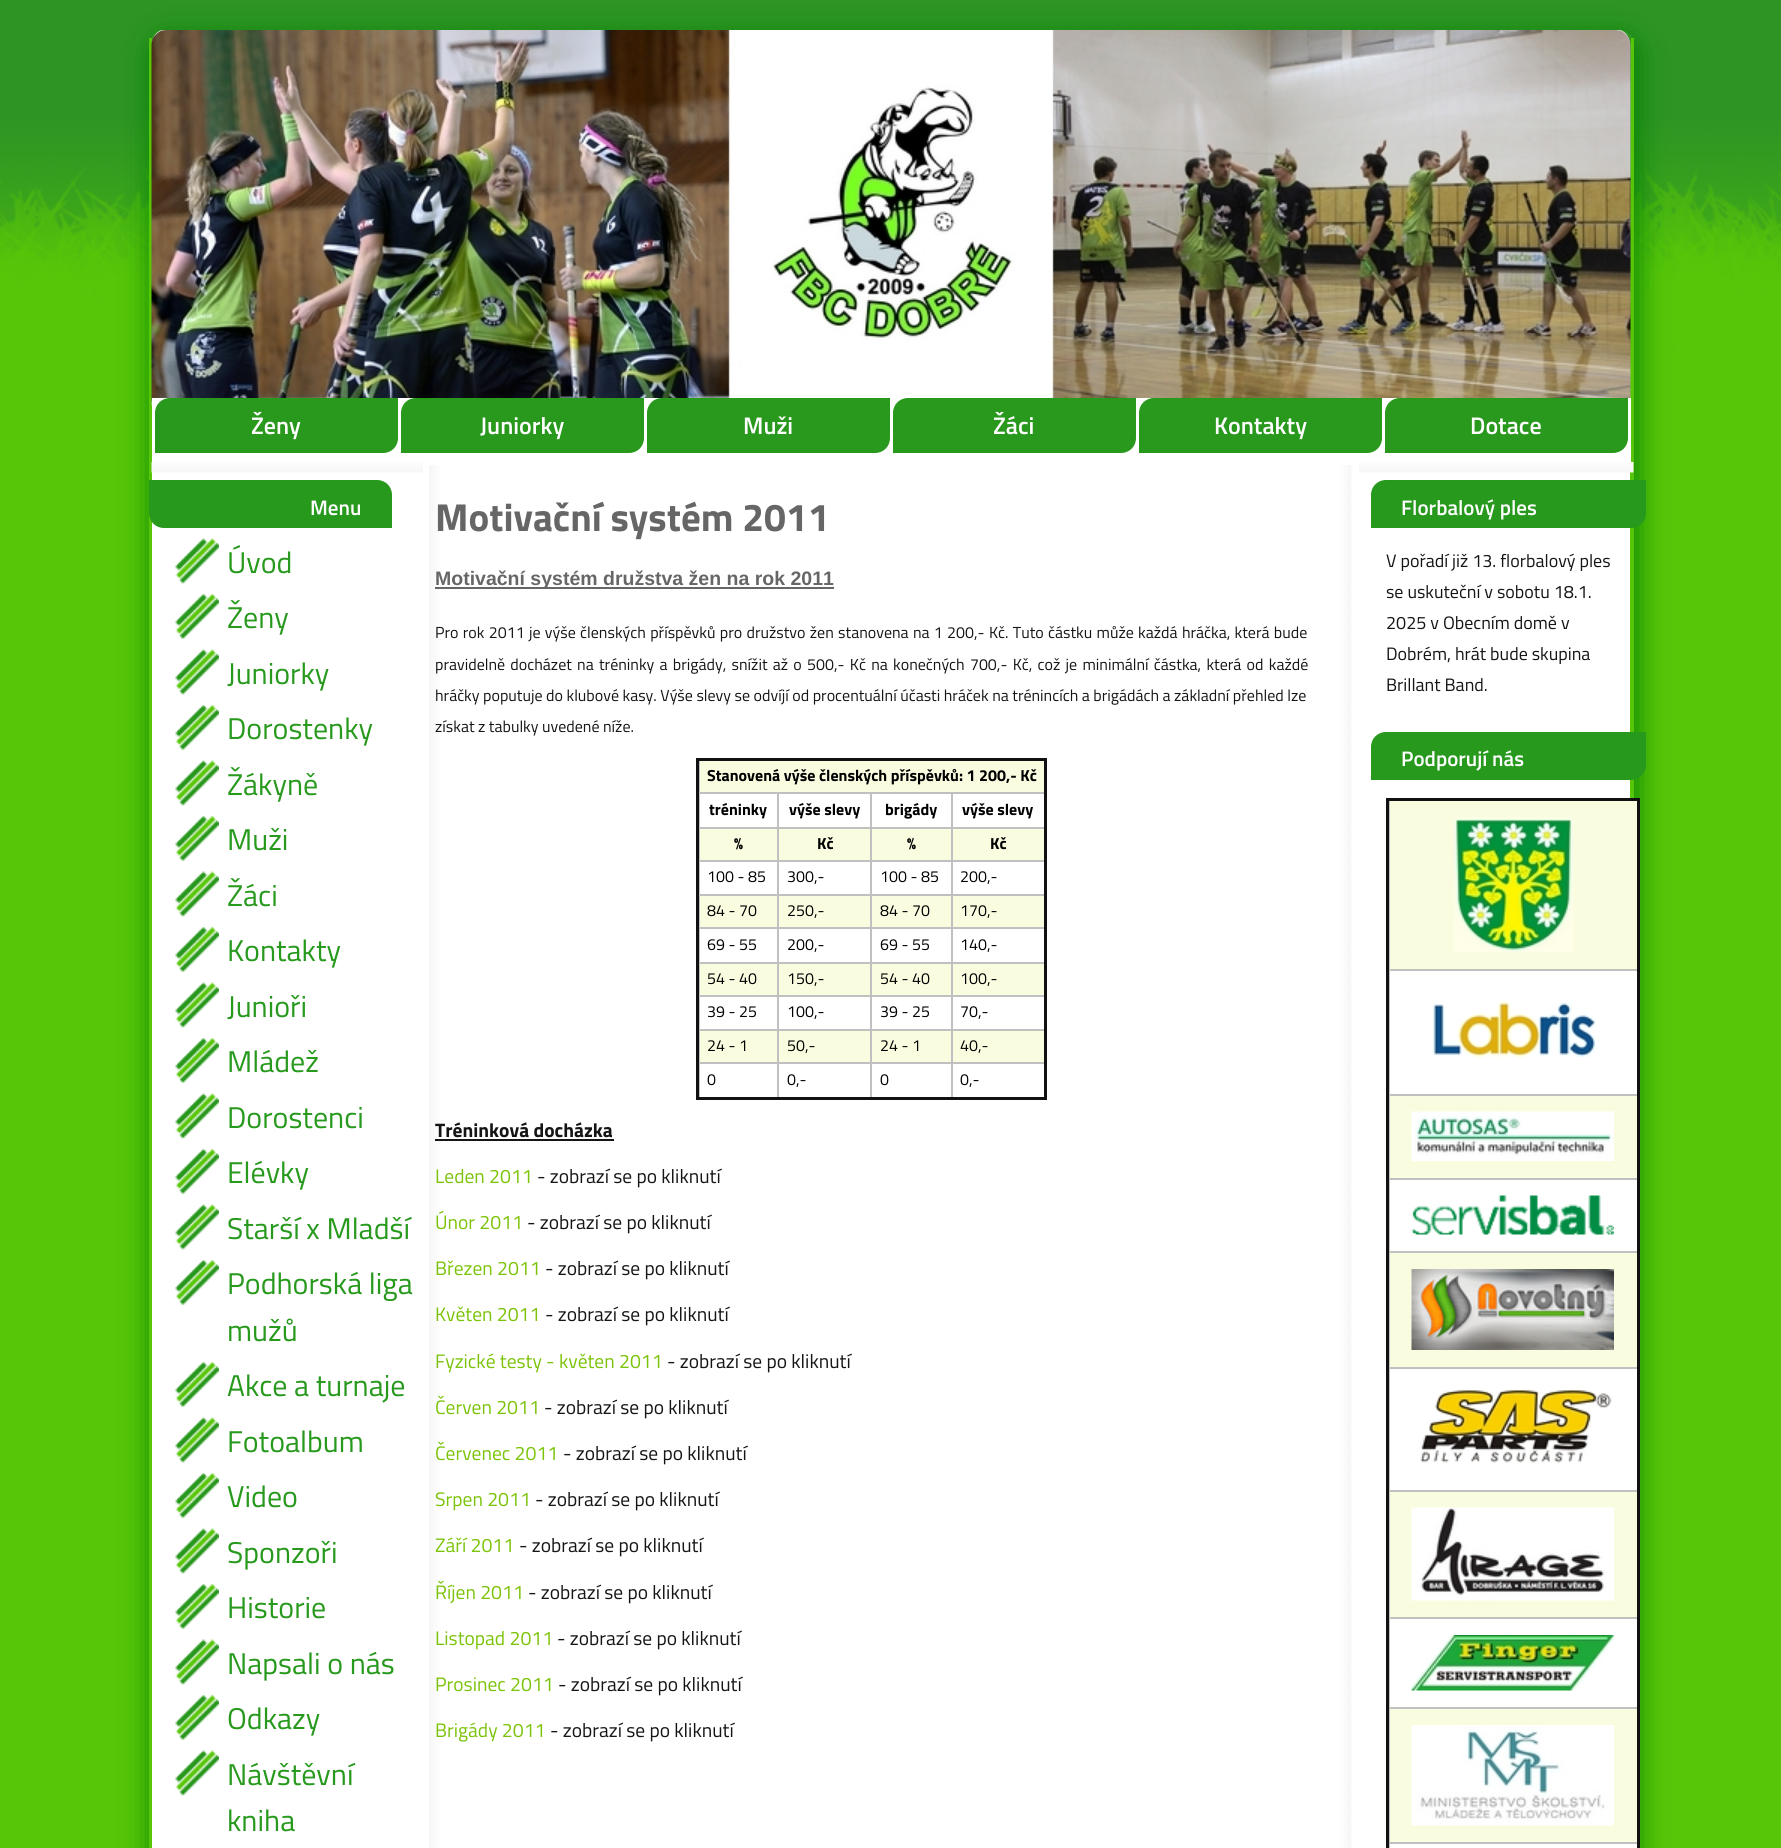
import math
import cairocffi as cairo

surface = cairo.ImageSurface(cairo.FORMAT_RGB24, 1781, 1848)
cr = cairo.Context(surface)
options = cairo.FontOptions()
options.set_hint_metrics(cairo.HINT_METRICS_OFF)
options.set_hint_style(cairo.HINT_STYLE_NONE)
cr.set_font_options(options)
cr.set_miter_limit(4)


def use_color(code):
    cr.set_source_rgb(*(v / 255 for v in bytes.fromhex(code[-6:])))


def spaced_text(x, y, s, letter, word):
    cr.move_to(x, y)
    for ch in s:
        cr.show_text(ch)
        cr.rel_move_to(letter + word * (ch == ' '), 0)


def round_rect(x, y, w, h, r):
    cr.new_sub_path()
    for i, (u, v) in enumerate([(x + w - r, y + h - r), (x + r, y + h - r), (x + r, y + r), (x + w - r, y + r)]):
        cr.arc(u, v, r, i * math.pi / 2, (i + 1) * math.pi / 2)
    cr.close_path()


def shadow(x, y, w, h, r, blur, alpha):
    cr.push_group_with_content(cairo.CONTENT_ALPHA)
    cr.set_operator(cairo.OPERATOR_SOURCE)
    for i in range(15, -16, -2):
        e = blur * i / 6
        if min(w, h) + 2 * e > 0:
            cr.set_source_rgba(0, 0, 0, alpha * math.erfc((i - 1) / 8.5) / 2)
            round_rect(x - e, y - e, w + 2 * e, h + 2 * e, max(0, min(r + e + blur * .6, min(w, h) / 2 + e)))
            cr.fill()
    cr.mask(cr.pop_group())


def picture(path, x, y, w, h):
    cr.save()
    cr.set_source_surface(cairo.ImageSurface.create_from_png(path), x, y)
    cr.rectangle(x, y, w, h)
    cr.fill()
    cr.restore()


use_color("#ffffff")
cr.paint()
picture("img1.png", 0, 0, 1781, 15)
use_color("#57c608")
cr.rectangle(0, 363, 1781, 1485)
cr.fill()
picture("img2.png", 0, 15, 1781, 348)
cr.save()
cr.set_fill_rule(cairo.FILL_RULE_EVEN_ODD)
cr.new_path()
cr.move_to(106, 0)
cr.line_to(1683, 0)
cr.line_to(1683, 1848)
cr.line_to(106, 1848)
cr.close_path()
cr.move_to(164, 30)
cr.line_to(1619, 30)
cr.curve_to(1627.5, 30, 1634, 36.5, 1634, 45)
cr.line_to(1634, 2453)
cr.curve_to(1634, 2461.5, 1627.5, 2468, 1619, 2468)
cr.line_to(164, 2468)
cr.curve_to(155.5, 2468, 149, 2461.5, 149, 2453)
cr.line_to(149, 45)
cr.curve_to(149, 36.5, 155.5, 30, 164, 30)
cr.close_path()
cr.clip()
use_color("#008000")
shadow(152, 38, 1485, 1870, 15, 15, 1)
cr.restore()
use_color("#ffffff")
cr.new_path()
cr.move_to(164, 30)
cr.line_to(1618, 30)
cr.curve_to(1625, 30, 1630, 37, 1630, 45)
cr.line_to(1630, 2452)
cr.curve_to(1630, 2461, 1625, 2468, 1618, 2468)
cr.line_to(164, 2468)
cr.curve_to(157, 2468, 152, 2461, 152, 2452)
cr.line_to(152, 45)
cr.curve_to(152, 37, 157, 30, 164, 30)
cr.close_path()
cr.fill()
use_color("#57c608")
cr.rectangle(1631, 38, 3, 760)
cr.fill()
cr.rectangle(149, 38, 3, 229)
cr.fill()
picture("img3.png", 429, 465, 923, 1383)
picture("img4.png", 151, 30, 1480, 375)
use_color("#ffffff")
cr.rectangle(152, 398, 1479, 67)
cr.fill()
use_color("#29991d")
cr.new_path()
cr.move_to(170, 398)
cr.line_to(398, 398)
cr.line_to(398, 438)
cr.curve_to(398, 446.5, 391.5, 453, 383, 453)
cr.line_to(155, 453)
cr.line_to(155, 413)
cr.curve_to(155, 404.5, 161.5, 398, 170, 398)
cr.close_path()
cr.fill()
cr.select_font_face("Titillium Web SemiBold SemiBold")
cr.set_font_size(24)
use_color("#ffffff")
cr.move_to(251, 434)
cr.show_text("Ženy")
use_color("#29991d")
cr.new_path()
cr.move_to(416, 398)
cr.line_to(644, 398)
cr.line_to(644, 438)
cr.curve_to(644, 446.5, 637.5, 453, 629, 453)
cr.line_to(401, 453)
cr.line_to(401, 413)
cr.curve_to(401, 404.5, 407.5, 398, 416, 398)
cr.close_path()
cr.fill()
use_color("#ffffff")
cr.move_to(480, 434)
cr.show_text("Juniorky")
use_color("#29991d")
cr.new_path()
cr.move_to(662, 398)
cr.line_to(890, 398)
cr.line_to(890, 438)
cr.curve_to(890, 446.5, 883.5, 453, 875, 453)
cr.line_to(647, 453)
cr.line_to(647, 413)
cr.curve_to(647, 404.5, 653.5, 398, 662, 398)
cr.close_path()
cr.fill()
use_color("#ffffff")
cr.move_to(743, 434)
cr.show_text("Muži")
use_color("#29991d")
cr.new_path()
cr.move_to(908, 398)
cr.line_to(1136, 398)
cr.line_to(1136, 438)
cr.curve_to(1136, 446.5, 1129.5, 453, 1121, 453)
cr.line_to(893, 453)
cr.line_to(893, 413)
cr.curve_to(893, 404.5, 899.5, 398, 908, 398)
cr.close_path()
cr.fill()
use_color("#ffffff")
cr.move_to(993, 434)
cr.show_text("Žáci")
use_color("#29991d")
cr.new_path()
cr.move_to(1154, 398)
cr.line_to(1382, 398)
cr.line_to(1382, 438)
cr.curve_to(1382, 446.5, 1375.5, 453, 1367, 453)
cr.line_to(1139, 453)
cr.line_to(1139, 413)
cr.curve_to(1139, 404.5, 1145.5, 398, 1154, 398)
cr.close_path()
cr.fill()
use_color("#ffffff")
cr.move_to(1214, 434)
cr.show_text("Kontakty")
use_color("#29991d")
cr.new_path()
cr.move_to(1400, 398)
cr.line_to(1628, 398)
cr.line_to(1628, 438)
cr.curve_to(1628, 446.5, 1621.5, 453, 1613, 453)
cr.line_to(1385, 453)
cr.line_to(1385, 413)
cr.curve_to(1385, 404.5, 1391.5, 398, 1400, 398)
cr.close_path()
cr.fill()
use_color("#ffffff")
cr.move_to(1470, 434)
cr.show_text("Dotace")
picture("img5.png", 151, 462, 272, 11)
use_color("#27991d")
cr.new_path()
cr.move_to(149, 480)
cr.line_to(377, 480)
cr.curve_to(385.5, 480, 392, 486.5, 392, 495)
cr.line_to(392, 528)
cr.line_to(164, 528)
cr.curve_to(155.5, 528, 149, 521.5, 149, 513)
cr.close_path()
cr.fill()
cr.set_font_size(21)
use_color("#ffffff")
cr.move_to(310, 515)
cr.show_text("Menu")
picture("img6.png", 175, 538, 44, 46)
cr.select_font_face("Titillium Web")
cr.set_font_size(30)
use_color("#27991d")
cr.move_to(227, 573)
cr.show_text("Úvod")
picture("img7.png", 175, 594, 44, 45)
cr.move_to(227, 628)
cr.show_text("Ženy")
picture("img6.png", 175, 649, 44, 46)
cr.move_to(227, 684)
cr.show_text("Juniorky")
picture("img7.png", 175, 705, 44, 45)
cr.move_to(227, 739)
cr.show_text("Dorostenky")
picture("img6.png", 175, 760, 44, 46)
cr.move_to(227, 795)
cr.show_text("Žákyně")
picture("img7.png", 175, 816, 44, 45)
cr.move_to(227, 850)
cr.show_text("Muži")
picture("img6.png", 175, 871, 44, 46)
cr.move_to(227, 906)
cr.show_text("Žáci")
picture("img7.png", 175, 927, 44, 45)
cr.move_to(227, 961)
cr.show_text("Kontakty")
picture("img6.png", 175, 982, 44, 46)
cr.move_to(227, 1017)
cr.show_text("Junioři")
picture("img7.png", 175, 1038, 44, 45)
cr.move_to(227, 1072)
cr.show_text("Mládež")
picture("img6.png", 175, 1093, 44, 46)
cr.move_to(227, 1128)
cr.show_text("Dorostenci")
picture("img7.png", 175, 1149, 44, 45)
cr.move_to(227, 1183)
cr.show_text("Elévky")
picture("img6.png", 175, 1204, 44, 46)
cr.move_to(227, 1239)
cr.show_text("Starší x Mladší")
picture("img7.png", 175, 1260, 44, 45)
cr.move_to(227, 1294)
cr.show_text("Podhorská liga")
cr.move_to(227, 1341)
cr.show_text("mužů")
picture("img7.png", 175, 1362, 44, 45)
cr.move_to(227, 1396)
cr.show_text("Akce a turnaje")
picture("img6.png", 175, 1417, 44, 46)
cr.move_to(227, 1452)
cr.show_text("Fotoalbum")
picture("img7.png", 175, 1473, 44, 45)
cr.move_to(227, 1507)
cr.show_text("Video")
picture("img6.png", 175, 1528, 44, 46)
cr.move_to(227, 1563)
cr.show_text("Sponzoři")
picture("img7.png", 175, 1584, 44, 45)
cr.move_to(227, 1618)
cr.show_text("Historie")
picture("img6.png", 175, 1639, 44, 46)
cr.move_to(227, 1674)
cr.show_text("Napsali o nás")
picture("img7.png", 175, 1695, 44, 45)
cr.move_to(227, 1729)
cr.show_text("Odkazy")
picture("img6.png", 175, 1750, 44, 46)
cr.move_to(227, 1785)
cr.show_text("Návštěvní")
cr.move_to(227, 1831)
cr.show_text("kniha")
cr.select_font_face("Titillium Web", cairo.FONT_SLANT_NORMAL, cairo.FONT_WEIGHT_BOLD)
cr.set_font_size(39)
use_color("#666666")
cr.move_to(435, 531)
cr.show_text("Motivační systém 2011")
cr.rectangle(435, 587, 399, 2)
cr.fill()
cr.select_font_face("Liberation Sans", cairo.FONT_SLANT_NORMAL, cairo.FONT_WEIGHT_BOLD)
cr.set_font_size(19.5)
cr.move_to(435, 585)
cr.show_text("Motivační systém družstva žen na rok 2011")
cr.select_font_face("Titillium Web")
cr.set_font_size(16)
use_color("#151515")
spaced_text(435, 638, "Pro rok 2011 je výše členských příspěvků pro družstvo žen stanovena na 1 200,- Kč. Tuto částku může každá hráčka, která bude", 0, 0.8)
spaced_text(435, 670, "pravidelně docházet na tréninky a brigády, snížit až o 500,- Kč na konečných 700,- Kč, což je minimální částka, která od každé", 0, 1.75)
cr.move_to(435, 701)
cr.show_text("hráčky poputuje do klubové kasy. Výše slevy se odvíjí od procentuální účasti hráček na trénincích a brigádách a základní přehled lze")
cr.move_to(435, 732)
cr.show_text("získat z tabulky uvedené níže.")
use_color("#c0c0c0")
cr.rectangle(951, 792, 95, 2)
cr.fill()
cr.rectangle(951, 827, 95, 2)
cr.fill()
use_color("#f9fcdf")
cr.rectangle(700, 829, 344, 31)
cr.fill()
use_color("#c0c0c0")
cr.rectangle(951, 860, 95, 2)
cr.fill()
cr.rectangle(951, 894, 95, 2)
cr.fill()
use_color("#f9fcdf")
cr.rectangle(700, 896, 344, 31)
cr.fill()
use_color("#c0c0c0")
cr.rectangle(951, 927, 95, 2)
cr.fill()
cr.rectangle(951, 962, 95, 2)
cr.fill()
use_color("#f9fcdf")
cr.rectangle(700, 964, 344, 31)
cr.fill()
use_color("#c0c0c0")
cr.rectangle(951, 995, 95, 2)
cr.fill()
cr.rectangle(951, 1029, 95, 2)
cr.fill()
use_color("#f9fcdf")
cr.rectangle(700, 1031, 344, 31)
cr.fill()
use_color("#c0c0c0")
cr.rectangle(951, 1062, 95, 2)
cr.fill()
cr.rectangle(951, 1062, 2, 36)
cr.fill()
cr.rectangle(870, 1062, 83, 2)
cr.fill()
cr.rectangle(951, 1029, 2, 35)
cr.fill()
cr.rectangle(870, 1029, 83, 2)
cr.fill()
cr.rectangle(951, 995, 2, 36)
cr.fill()
cr.rectangle(870, 995, 83, 2)
cr.fill()
cr.rectangle(951, 962, 2, 34)
cr.fill()
cr.rectangle(870, 962, 83, 2)
cr.fill()
cr.rectangle(951, 927, 2, 36)
cr.fill()
cr.rectangle(870, 927, 83, 2)
cr.fill()
cr.rectangle(951, 894, 2, 35)
cr.fill()
cr.rectangle(870, 894, 83, 2)
cr.fill()
cr.rectangle(951, 860, 2, 36)
cr.fill()
cr.rectangle(870, 860, 83, 2)
cr.fill()
cr.rectangle(951, 827, 2, 34)
cr.fill()
cr.rectangle(870, 827, 83, 2)
cr.fill()
cr.rectangle(951, 792, 2, 36)
cr.fill()
cr.rectangle(870, 792, 83, 2)
cr.fill()
cr.rectangle(870, 1062, 2, 36)
cr.fill()
cr.rectangle(777, 1062, 95, 2)
cr.fill()
cr.rectangle(870, 1029, 2, 35)
cr.fill()
cr.rectangle(777, 1029, 95, 2)
cr.fill()
cr.rectangle(870, 995, 2, 36)
cr.fill()
cr.rectangle(777, 995, 95, 2)
cr.fill()
cr.rectangle(870, 962, 2, 34)
cr.fill()
cr.rectangle(777, 962, 95, 2)
cr.fill()
cr.rectangle(870, 927, 2, 36)
cr.fill()
cr.rectangle(777, 927, 95, 2)
cr.fill()
cr.rectangle(870, 894, 2, 35)
cr.fill()
cr.rectangle(777, 894, 95, 2)
cr.fill()
cr.rectangle(870, 860, 2, 36)
cr.fill()
cr.rectangle(777, 860, 95, 2)
cr.fill()
cr.rectangle(870, 827, 2, 34)
cr.fill()
cr.rectangle(777, 827, 95, 2)
cr.fill()
cr.rectangle(870, 792, 2, 36)
cr.fill()
cr.rectangle(777, 792, 95, 2)
cr.fill()
cr.rectangle(777, 1062, 2, 36)
cr.fill()
cr.rectangle(698, 1062, 81, 2)
cr.fill()
cr.rectangle(777, 1029, 2, 35)
cr.fill()
cr.rectangle(698, 1029, 81, 2)
cr.fill()
cr.rectangle(777, 995, 2, 36)
cr.fill()
cr.rectangle(698, 995, 81, 2)
cr.fill()
cr.rectangle(777, 962, 2, 34)
cr.fill()
cr.rectangle(698, 962, 81, 2)
cr.fill()
cr.rectangle(777, 927, 2, 36)
cr.fill()
cr.rectangle(698, 927, 81, 2)
cr.fill()
cr.rectangle(777, 894, 2, 35)
cr.fill()
cr.rectangle(698, 894, 81, 2)
cr.fill()
cr.rectangle(777, 860, 2, 36)
cr.fill()
cr.rectangle(698, 860, 81, 2)
cr.fill()
cr.rectangle(777, 827, 2, 34)
cr.fill()
cr.rectangle(698, 827, 81, 2)
cr.fill()
cr.rectangle(777, 792, 2, 36)
cr.fill()
cr.rectangle(698, 792, 81, 2)
cr.fill()
cr.rectangle(699, 1062, 1, 36)
cr.fill()
cr.rectangle(699, 1029, 1, 35)
cr.fill()
cr.rectangle(699, 995, 1, 36)
cr.fill()
cr.rectangle(699, 962, 1, 34)
cr.fill()
cr.rectangle(699, 927, 1, 36)
cr.fill()
cr.rectangle(699, 894, 1, 35)
cr.fill()
cr.rectangle(699, 860, 1, 36)
cr.fill()
cr.rectangle(699, 827, 1, 34)
cr.fill()
cr.rectangle(699, 758, 1, 70)
cr.fill()
use_color("#111111")
cr.rectangle(696, 758, 351, 3)
cr.fill()
cr.rectangle(1044, 758, 3, 342)
cr.fill()
cr.rectangle(696, 1097, 351, 3)
cr.fill()
cr.rectangle(696, 758, 3, 342)
cr.fill()
use_color("#f9fcdf")
cr.rectangle(700, 761, 344, 31)
cr.fill()
cr.select_font_face("Titillium Web", cairo.FONT_SLANT_NORMAL, cairo.FONT_WEIGHT_BOLD)
use_color("#000000")
cr.move_to(707, 781)
cr.show_text("Stanovená výše členských příspěvků: 1 200,- Kč")
cr.move_to(709, 815)
cr.show_text("tréninky")
cr.move_to(789, 815)
cr.show_text("výše slevy")
cr.move_to(885, 815)
cr.show_text("brigády")
cr.move_to(962, 815)
cr.show_text("výše slevy")
cr.move_to(734, 849)
cr.show_text("%")
cr.move_to(817, 849)
cr.show_text("Kč")
cr.move_to(907, 849)
cr.show_text("%")
cr.move_to(990, 849)
cr.show_text("Kč")
cr.select_font_face("Titillium Web")
cr.move_to(707, 882)
cr.show_text("100 - 85")
cr.move_to(787, 882)
cr.show_text("300,-")
cr.move_to(880, 882)
cr.show_text("100 - 85")
cr.move_to(960, 882)
cr.show_text("200,-")
cr.move_to(707, 916)
cr.show_text("84 - 70")
cr.move_to(787, 916)
cr.show_text("250,-")
cr.move_to(880, 916)
cr.show_text("84 - 70")
cr.move_to(960, 916)
cr.show_text("170,-")
cr.move_to(707, 950)
cr.show_text("69 - 55")
cr.move_to(787, 950)
cr.show_text("200,-")
cr.move_to(880, 950)
cr.show_text("69 - 55")
cr.move_to(960, 950)
cr.show_text("140,-")
cr.move_to(707, 984)
cr.show_text("54 - 40")
cr.move_to(787, 984)
cr.show_text("150,-")
cr.move_to(880, 984)
cr.show_text("54 - 40")
cr.move_to(960, 984)
cr.show_text("100,-")
cr.move_to(707, 1017)
cr.show_text("39 - 25")
cr.move_to(787, 1017)
cr.show_text("100,-")
cr.move_to(880, 1017)
cr.show_text("39 - 25")
cr.move_to(960, 1017)
cr.show_text("70,-")
cr.move_to(707, 1051)
cr.show_text("24 - 1")
cr.move_to(787, 1051)
cr.show_text("50,-")
cr.move_to(880, 1051)
cr.show_text("24 - 1")
cr.move_to(960, 1051)
cr.show_text("40,-")
cr.move_to(707, 1085)
cr.show_text("0")
cr.move_to(787, 1085)
cr.show_text("0,-")
cr.move_to(880, 1085)
cr.show_text("0")
cr.move_to(960, 1085)
cr.show_text("0,-")
cr.select_font_face("Titillium Web", cairo.FONT_SLANT_NORMAL, cairo.FONT_WEIGHT_BOLD)
cr.set_font_size(19.5)
use_color("#151515")
cr.move_to(435, 1137)
cr.show_text("Tréninková docházka")
cr.rectangle(435, 1139, 179, 2)
cr.fill()
cr.select_font_face("Titillium Web")
use_color("#7bc308")
cr.move_to(435, 1183)
cr.show_text("Leden 2011")
use_color("#151515")
cr.move_to(537, 1183)
cr.show_text("- zobrazí se po kliknutí")
use_color("#7bc308")
cr.move_to(435, 1229)
cr.show_text("Únor 2011")
use_color("#151515")
cr.move_to(527, 1229)
cr.show_text("- zobrazí se po kliknutí")
use_color("#7bc308")
cr.move_to(435, 1275)
cr.show_text("Březen 2011")
use_color("#151515")
cr.move_to(545, 1275)
cr.show_text("- zobrazí se po kliknutí")
use_color("#7bc308")
cr.move_to(435, 1321)
cr.show_text("Květen 2011")
use_color("#151515")
cr.move_to(545, 1321)
cr.show_text("- zobrazí se po kliknutí")
use_color("#7bc308")
cr.move_to(435, 1368)
cr.show_text("Fyzické testy - květen 2011")
use_color("#151515")
cr.move_to(667, 1368)
cr.show_text("- zobrazí se po kliknutí")
use_color("#7bc308")
cr.move_to(435, 1414)
cr.show_text("Červen 2011")
use_color("#151515")
cr.move_to(544, 1414)
cr.show_text("- zobrazí se po kliknutí")
use_color("#7bc308")
cr.move_to(435, 1460)
cr.show_text("Červenec 2011")
use_color("#151515")
cr.move_to(563, 1460)
cr.show_text("- zobrazí se po kliknutí")
use_color("#7bc308")
cr.move_to(435, 1506)
cr.show_text("Srpen 2011")
use_color("#151515")
cr.move_to(535, 1506)
cr.show_text("- zobrazí se po kliknutí")
use_color("#7bc308")
cr.move_to(435, 1552)
cr.show_text("Září 2011")
use_color("#151515")
cr.move_to(519, 1552)
cr.show_text("- zobrazí se po kliknutí")
use_color("#7bc308")
cr.move_to(435, 1599)
cr.show_text("Říjen 2011")
use_color("#151515")
cr.move_to(528, 1599)
cr.show_text("- zobrazí se po kliknutí")
use_color("#7bc308")
cr.move_to(435, 1645)
cr.show_text("Listopad 2011")
use_color("#151515")
cr.move_to(557, 1645)
cr.show_text("- zobrazí se po kliknutí")
use_color("#7bc308")
cr.move_to(435, 1691)
cr.show_text("Prosinec 2011")
use_color("#151515")
cr.move_to(558, 1691)
cr.show_text("- zobrazí se po kliknutí")
use_color("#7bc308")
cr.move_to(435, 1737)
cr.show_text("Brigády 2011")
use_color("#151515")
cr.move_to(550, 1737)
cr.show_text("- zobrazí se po kliknutí")
picture("img8.png", 1359, 462, 275, 11)
use_color("#27991d")
cr.new_path()
cr.move_to(1386, 480)
cr.line_to(1646, 480)
cr.line_to(1646, 513)
cr.curve_to(1646, 521.5, 1639.5, 528, 1631, 528)
cr.line_to(1371, 528)
cr.line_to(1371, 495)
cr.curve_to(1371, 486.5, 1377.5, 480, 1386, 480)
cr.close_path()
cr.fill()
cr.select_font_face("Titillium Web SemiBold SemiBold")
cr.set_font_size(21)
use_color("#ffffff")
cr.move_to(1401, 515)
cr.show_text("Florbalový ples")
cr.select_font_face("Titillium Web")
cr.set_font_size(18)
use_color("#151515")
cr.move_to(1386, 567)
cr.show_text("V pořadí již 13. florbalový ples")
cr.move_to(1386, 598)
cr.show_text("se uskuteční v sobotu 18.1.")
cr.move_to(1386, 629)
cr.show_text("2025 v Obecním domě v")
cr.move_to(1386, 660)
cr.show_text("Dobrém, hrát bude skupina")
cr.move_to(1386, 691)
cr.show_text("Brillant Band.")
use_color("#27991d")
cr.new_path()
cr.move_to(1386, 732)
cr.line_to(1646, 732)
cr.line_to(1646, 765)
cr.curve_to(1646, 773.5, 1639.5, 780, 1631, 780)
cr.line_to(1371, 780)
cr.line_to(1371, 747)
cr.curve_to(1371, 738.5, 1377.5, 732, 1386, 732)
cr.close_path()
cr.fill()
cr.select_font_face("Titillium Web SemiBold SemiBold")
cr.set_font_size(21)
use_color("#ffffff")
cr.move_to(1401, 766)
cr.show_text("Podporují nás")
cr.rectangle(1630, 971, 7, 877)
cr.fill()
use_color("#c0c0c0")
cr.rectangle(1388, 969, 252, 2)
cr.fill()
cr.rectangle(1388, 1094, 252, 2)
cr.fill()
cr.rectangle(1388, 1178, 252, 2)
cr.fill()
cr.rectangle(1388, 1251, 252, 2)
cr.fill()
cr.rectangle(1388, 1367, 252, 2)
cr.fill()
cr.rectangle(1388, 1490, 252, 2)
cr.fill()
cr.rectangle(1388, 1617, 252, 2)
cr.fill()
cr.rectangle(1388, 1707, 252, 2)
cr.fill()
cr.rectangle(1388, 1842, 252, 2)
cr.fill()
cr.rectangle(1389, 1842, 1, 6)
cr.fill()
cr.rectangle(1389, 1707, 1, 137)
cr.fill()
cr.rectangle(1389, 1617, 1, 92)
cr.fill()
cr.rectangle(1389, 1490, 1, 129)
cr.fill()
cr.rectangle(1389, 1367, 1, 124)
cr.fill()
cr.rectangle(1389, 1251, 1, 117)
cr.fill()
cr.rectangle(1389, 1178, 1, 75)
cr.fill()
cr.rectangle(1389, 1094, 1, 85)
cr.fill()
cr.rectangle(1389, 798, 1, 297)
cr.fill()
use_color("#111111")
cr.rectangle(1386, 798, 254, 3)
cr.fill()
cr.rectangle(1637, 798, 3, 1050)
cr.fill()
cr.rectangle(1386, 798, 3, 1050)
cr.fill()
picture("img9.png", 1432, 1000, 164, 58)
use_color("#f9fcdf")
cr.rectangle(1390, 801, 247, 168)
cr.fill()
picture("img10.png", 1453, 817, 121, 136)
cr.rectangle(1390, 1096, 247, 82)
cr.fill()
picture("img11.png", 1411, 1111, 203, 50)
picture("img12.png", 1411, 1195, 203, 40)
cr.rectangle(1390, 1253, 247, 114)
cr.fill()
picture("img13.png", 1411, 1269, 203, 81)
picture("img14.png", 1420, 1389, 192, 74)
cr.rectangle(1390, 1492, 247, 125)
cr.fill()
picture("img15.png", 1411, 1507, 203, 94)
picture("img16.png", 1411, 1635, 203, 56)
cr.rectangle(1390, 1709, 247, 133)
cr.fill()
picture("img17.png", 1411, 1725, 203, 101)
surface.write_to_png("result.png")
